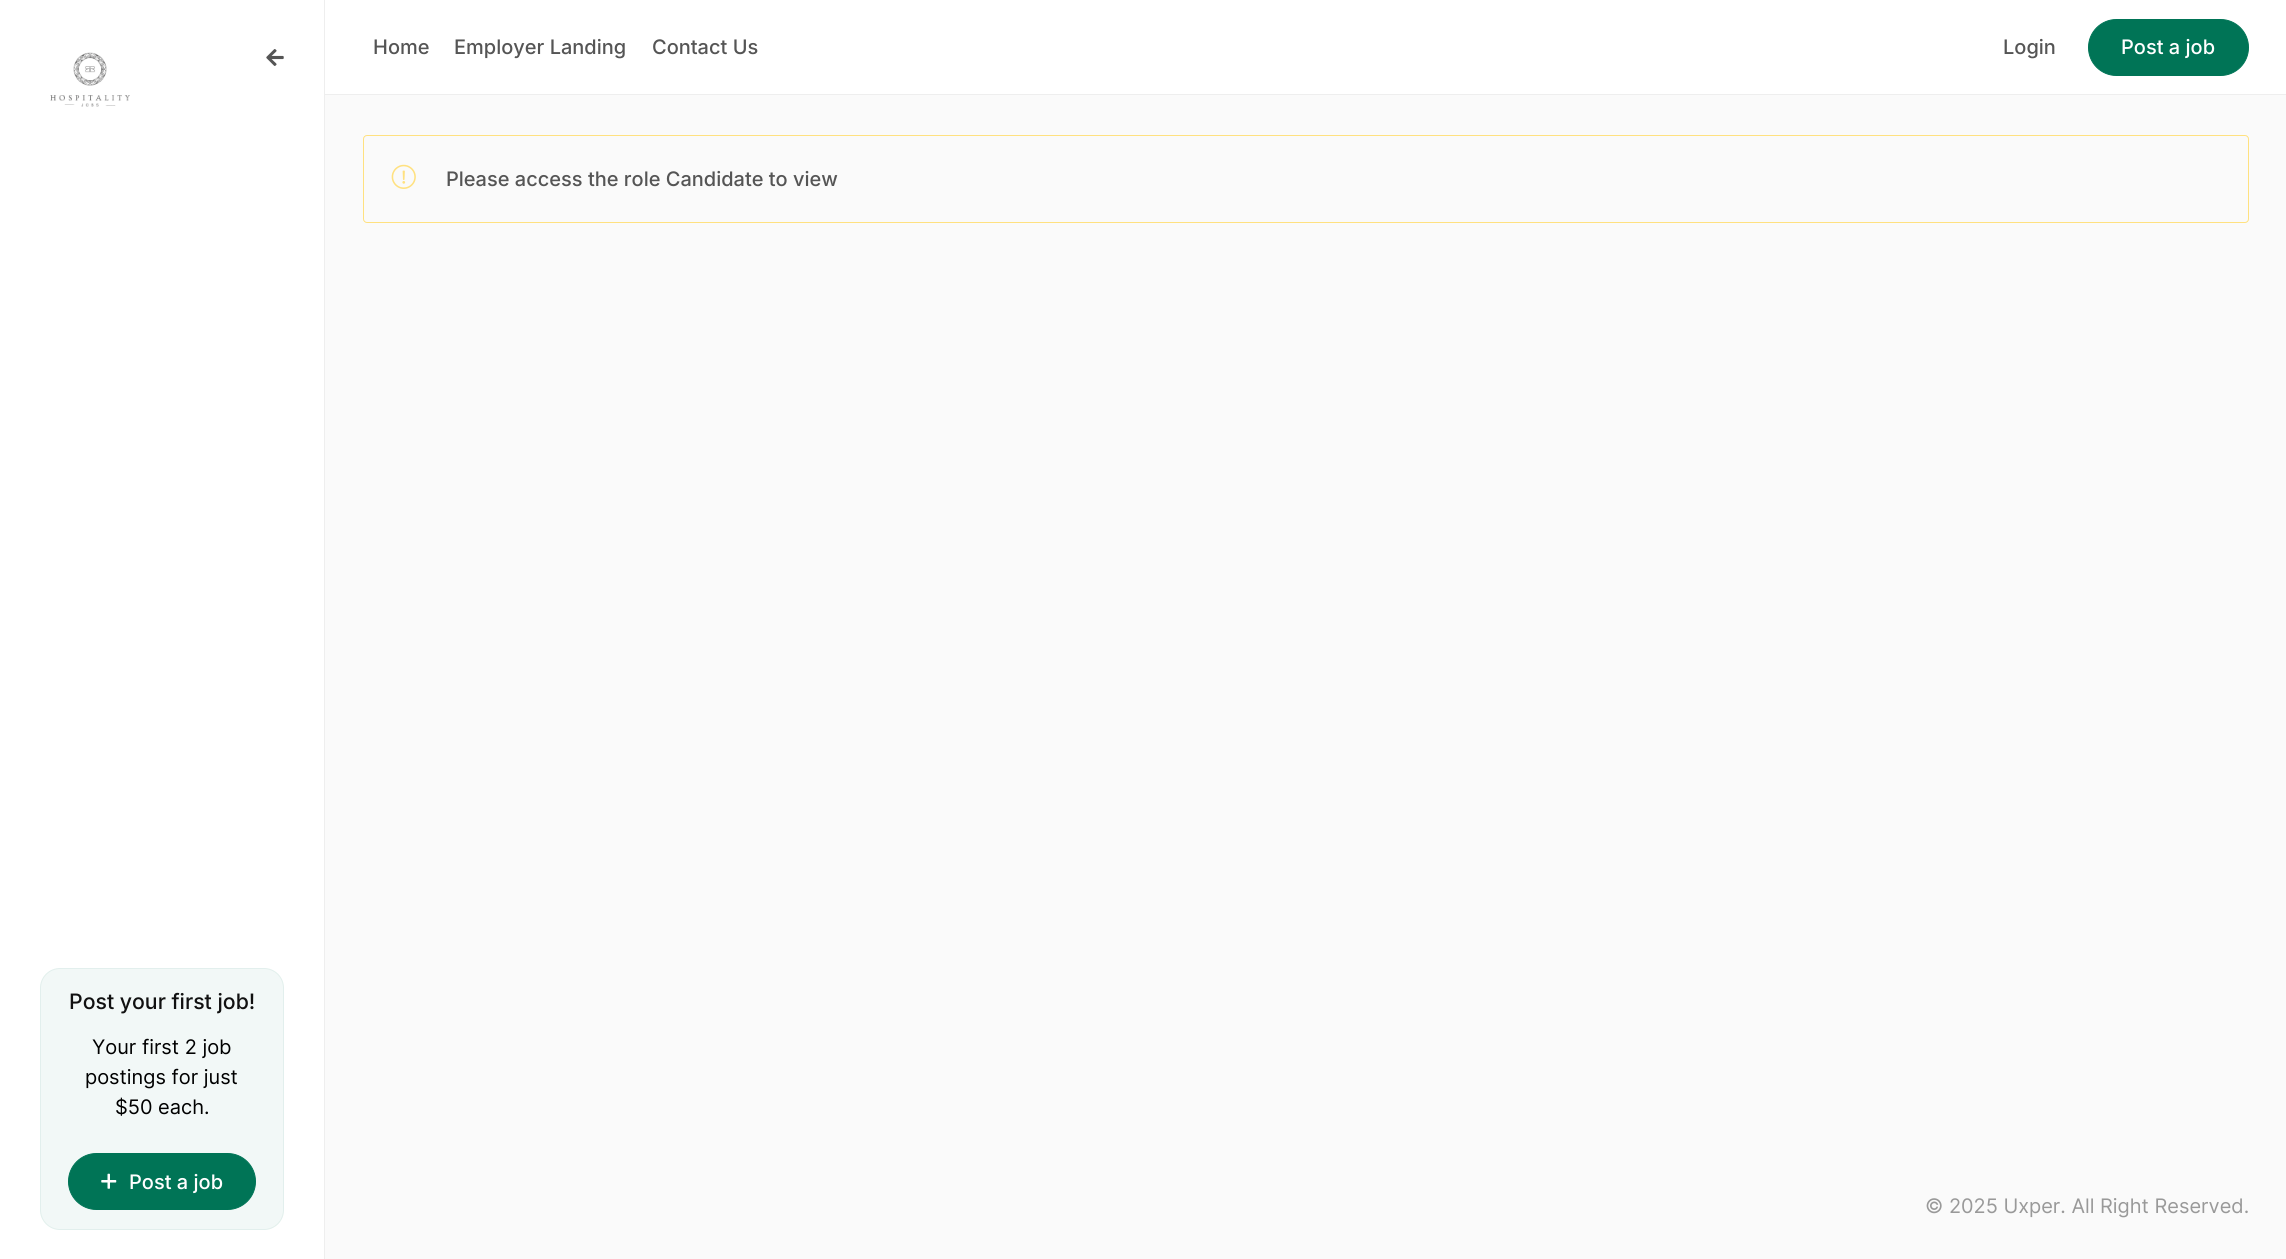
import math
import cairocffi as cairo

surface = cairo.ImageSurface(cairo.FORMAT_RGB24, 2286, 1259)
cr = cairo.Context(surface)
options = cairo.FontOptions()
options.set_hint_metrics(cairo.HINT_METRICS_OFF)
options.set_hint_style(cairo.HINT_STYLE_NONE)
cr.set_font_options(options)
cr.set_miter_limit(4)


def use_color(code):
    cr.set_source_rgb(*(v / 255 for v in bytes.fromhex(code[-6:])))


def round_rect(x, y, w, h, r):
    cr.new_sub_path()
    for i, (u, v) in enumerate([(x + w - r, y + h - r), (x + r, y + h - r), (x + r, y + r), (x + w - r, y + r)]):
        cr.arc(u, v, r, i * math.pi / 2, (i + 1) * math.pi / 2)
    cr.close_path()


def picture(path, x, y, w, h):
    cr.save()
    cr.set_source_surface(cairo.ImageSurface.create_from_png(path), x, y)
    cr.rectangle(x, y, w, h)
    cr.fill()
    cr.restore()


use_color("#fafafa")
cr.paint()
use_color("#ffffff")
cr.rectangle(0, 0, 324, 1259)
cr.fill()
use_color("#eeeeee")
cr.rectangle(324, 0, 1, 1259)
cr.fill()
picture("img1.png", 50, 52, 80, 55)
picture("img2.png", 266, 49, 18, 17)
use_color("#f2f8f7")
round_rect(40, 968, 244, 262, 20)
cr.fill()
round_rect(40.5, 968.5, 243, 261, 19.5)
cr.set_source_rgba(0, 0.455, 0.337, 0.07)
cr.set_line_width(1)
cr.stroke()
cr.select_font_face("Inter Medium")
cr.set_font_size(21.25)
use_color("#111111")
cr.move_to(69, 1009)
cr.show_text("Post your first job!")
cr.select_font_face("Inter")
cr.set_font_size(20)
use_color("#000000")
cr.move_to(92, 1054)
cr.show_text("Your first 2 job")
cr.move_to(85, 1084)
cr.show_text("postings for just")
cr.move_to(115, 1114)
cr.show_text("$50 each.")
use_color("#007456")
round_rect(68.5, 1153.5, 187, 56, 28)
cr.fill_preserve()
cr.stroke()
picture("img3.png", 101, 1173, 16, 16)
cr.select_font_face("Inter Medium")
use_color("#ffffff")
cr.move_to(129, 1189)
cr.show_text("Post a job")
cr.rectangle(325, 0, 1961, 94)
cr.fill()
use_color("#eeeeee")
cr.rectangle(325, 94, 1961, 1)
cr.fill()
use_color("#555555")
cr.move_to(373, 54)
cr.show_text("Home")
cr.move_to(454, 54)
cr.show_text("Employer Landing")
cr.move_to(652, 54)
cr.show_text("Contact Us")
cr.move_to(2003, 54)
cr.show_text("Login")
use_color("#007456")
round_rect(2088.5, 19.5, 160, 56, 28)
cr.fill_preserve()
cr.stroke()
use_color("#ffffff")
cr.move_to(2121, 54)
cr.show_text("Post a job")
round_rect(363.5, 135.5, 1885, 87, 3.5)
use_color("#ffe180")
cr.stroke()
picture("img4.png", 391, 164, 25, 25)
use_color("#555555")
cr.move_to(446, 186)
cr.show_text("Please access the role Candidate to view")
cr.select_font_face("Inter")
use_color("#999999")
cr.move_to(1925, 1213)
cr.show_text("© 2025 Uxper. All Right Reserved.")
surface.write_to_png("result.png")
